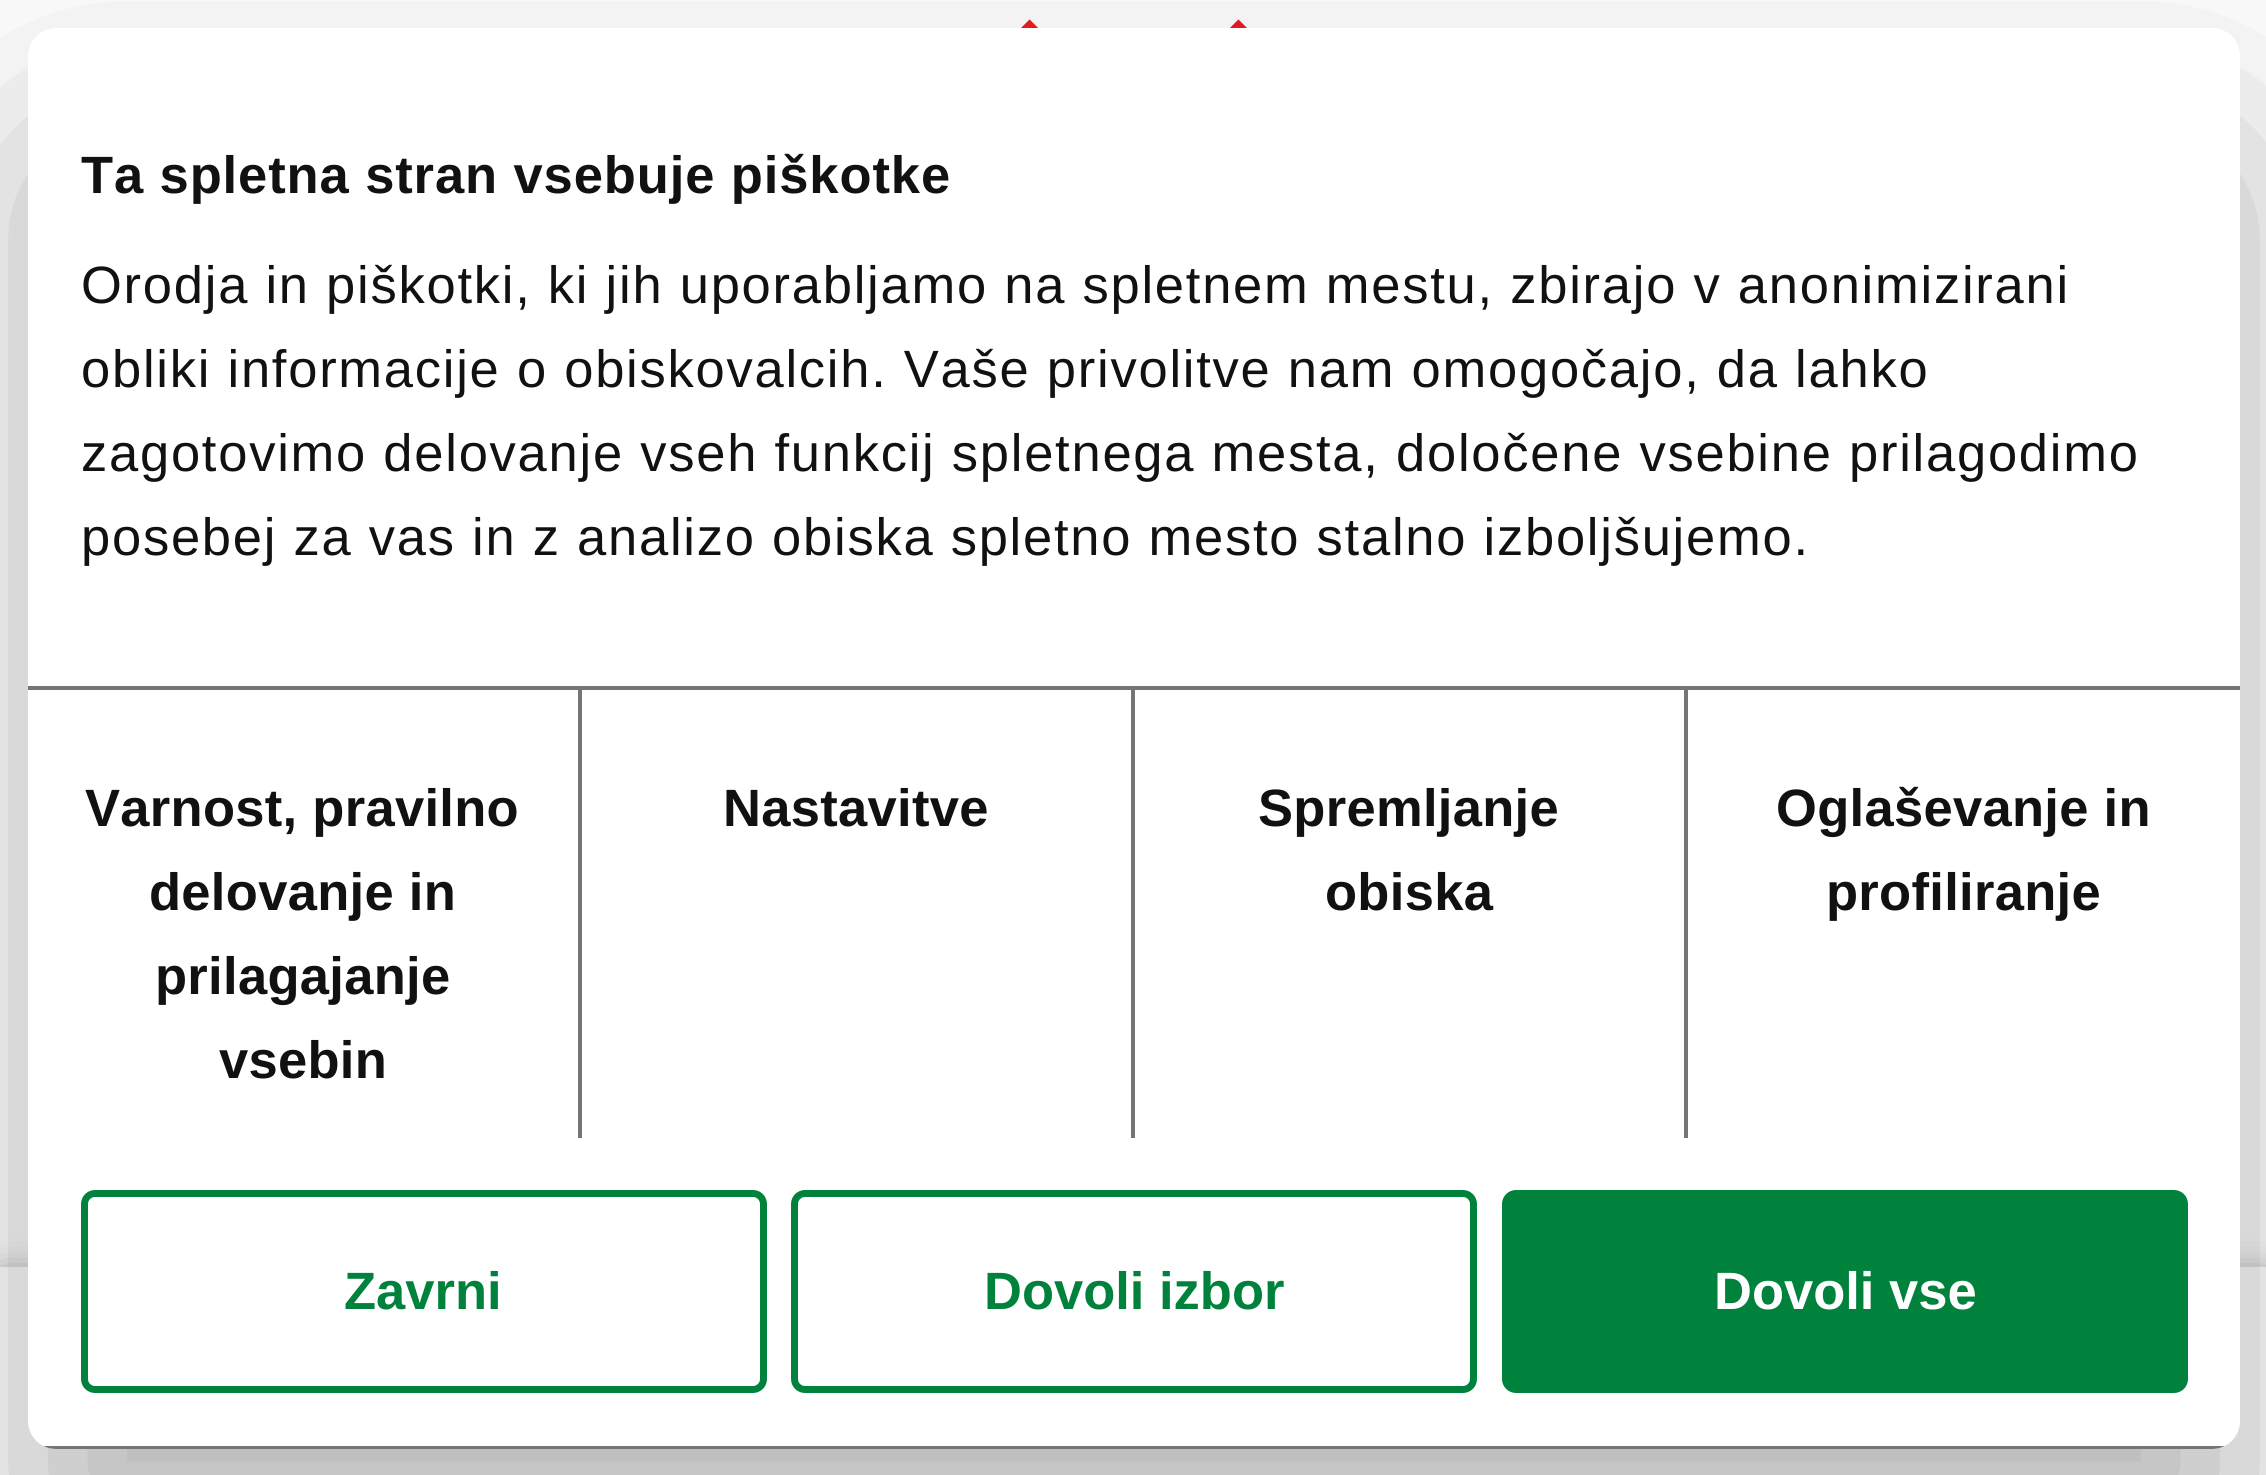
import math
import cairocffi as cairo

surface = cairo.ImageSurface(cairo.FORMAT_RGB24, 2266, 1475)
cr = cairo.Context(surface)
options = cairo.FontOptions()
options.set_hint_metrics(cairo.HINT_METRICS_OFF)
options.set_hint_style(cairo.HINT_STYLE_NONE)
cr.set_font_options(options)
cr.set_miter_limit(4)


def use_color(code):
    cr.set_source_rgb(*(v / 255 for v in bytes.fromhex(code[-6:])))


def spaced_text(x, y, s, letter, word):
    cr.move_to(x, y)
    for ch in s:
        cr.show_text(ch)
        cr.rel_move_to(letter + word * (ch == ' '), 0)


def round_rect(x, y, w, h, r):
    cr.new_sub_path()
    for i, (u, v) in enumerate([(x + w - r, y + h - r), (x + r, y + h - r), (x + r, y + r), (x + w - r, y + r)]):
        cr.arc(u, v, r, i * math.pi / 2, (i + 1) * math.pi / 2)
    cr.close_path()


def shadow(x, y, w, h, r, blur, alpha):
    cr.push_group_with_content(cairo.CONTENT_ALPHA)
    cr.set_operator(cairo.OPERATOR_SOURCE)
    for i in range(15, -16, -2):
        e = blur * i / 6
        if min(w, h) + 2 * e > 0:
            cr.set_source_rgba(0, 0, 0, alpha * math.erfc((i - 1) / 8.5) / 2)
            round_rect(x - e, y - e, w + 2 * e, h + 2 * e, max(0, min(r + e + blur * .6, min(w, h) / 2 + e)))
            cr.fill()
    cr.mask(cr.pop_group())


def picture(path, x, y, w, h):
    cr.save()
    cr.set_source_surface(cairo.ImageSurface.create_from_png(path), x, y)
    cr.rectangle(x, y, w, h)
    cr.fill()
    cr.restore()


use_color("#ffffff")
cr.paint()
picture("img1.png", 1021, 19, 226, 9)
use_color("#000000")
shadow(0, 1271, 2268, 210, 0, 16, 0.3)
use_color("#ffffff")
cr.rectangle(0, 1267, 2266, 208)
cr.fill()
use_color("#000000")
shadow(28, 140, 2212, 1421, 28, 119, 0.3)
use_color("#ffffff")
round_rect(28, 28, 2212, 1421, 28)
cr.fill()
use_color("#757575")
cr.rectangle(28, 686, 2212, 4)
cr.fill()
cr.select_font_face("Liberation Sans", cairo.FONT_SLANT_NORMAL, cairo.FONT_WEIGHT_BOLD)
cr.set_font_size(52.5)
use_color("#111111")
spaced_text(81, 193, "Ta spletna stran vsebuje piškotke", 0.9, 0)
cr.select_font_face("Liberation Sans")
spaced_text(81, 303, "Orodja in piškotki, ki jih uporabljamo na spletnem mestu, zbirajo v anonimizirani", 1.75, 0)
spaced_text(81, 387, "obliki informacije o obiskovalcih. Vaše privolitve nam omogočajo, da lahko", 1.75, 0)
spaced_text(81, 471, "zagotovimo delovanje vseh funkcij spletnega mesta, določene vsebine prilagodimo", 1.75, 0)
spaced_text(81, 555, "posebej za vas in z analizo obiska spletno mesto stalno izboljšujemo.", 1.75, 0)
use_color("#757575")
cr.rectangle(578, 690, 4, 448)
cr.fill()
cr.select_font_face("Liberation Sans", cairo.FONT_SLANT_NORMAL, cairo.FONT_WEIGHT_BOLD)
use_color("#111111")
spaced_text(85, 826, "Varnost, pravilno", 0.3, 0)
spaced_text(149, 910, "delovanje in", 0.3, 0)
spaced_text(155, 994, "prilagajanje", 0.3, 0)
spaced_text(219, 1078, "vsebin", 0.3, 0)
use_color("#757575")
cr.rectangle(1131, 690, 4, 448)
cr.fill()
use_color("#111111")
spaced_text(723, 826, "Nastavitve", 0.3, 0)
use_color("#757575")
cr.rectangle(1684, 690, 4, 448)
cr.fill()
use_color("#111111")
spaced_text(1258, 826, "Spremljanje", 0.3, 0)
spaced_text(1325, 910, "obiska", 0.3, 0)
spaced_text(1776, 826, "Oglaševanje in", 0.3, 0)
spaced_text(1826, 910, "profiliranje", 0.3, 0)
cr.save()
round_rect(28, 28, 2212, 1421, 28)
cr.clip()
use_color("#757575")
cr.rectangle(43, 1446, 2182, 3)
cr.fill()
cr.restore()
round_rect(84.5, 1193.5, 679, 196, 10.5)
use_color("#00823c")
cr.set_line_width(7)
cr.stroke()
cr.move_to(344, 1309)
cr.show_text("Zavrni")
round_rect(794.5, 1193.5, 679, 196, 10.5)
cr.stroke()
cr.move_to(984, 1309)
cr.show_text("Dovoli izbor")
round_rect(1505.5, 1193.5, 679, 196, 10.5)
cr.fill_preserve()
cr.stroke()
use_color("#ffffff")
cr.move_to(1714, 1309)
cr.show_text("Dovoli vse")
surface.write_to_png("result.png")
